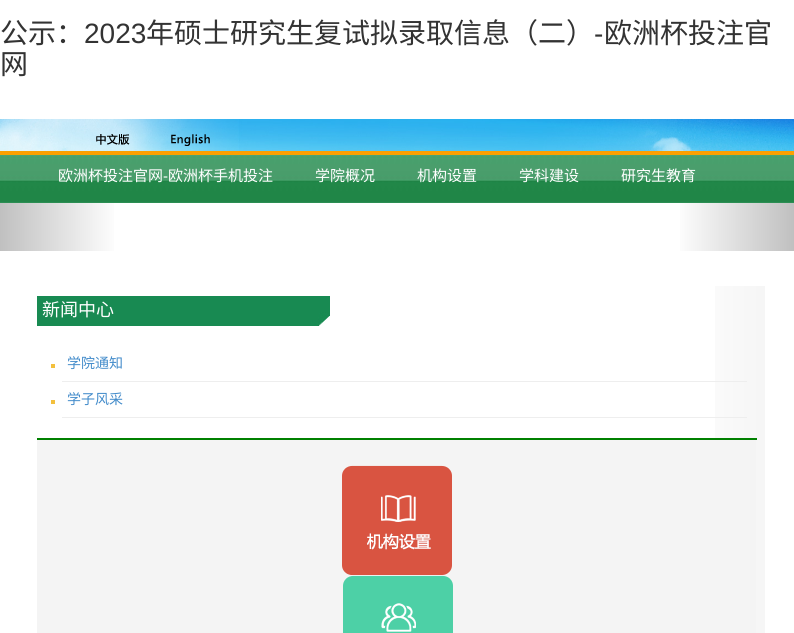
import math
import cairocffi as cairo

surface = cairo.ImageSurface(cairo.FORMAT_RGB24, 794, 633)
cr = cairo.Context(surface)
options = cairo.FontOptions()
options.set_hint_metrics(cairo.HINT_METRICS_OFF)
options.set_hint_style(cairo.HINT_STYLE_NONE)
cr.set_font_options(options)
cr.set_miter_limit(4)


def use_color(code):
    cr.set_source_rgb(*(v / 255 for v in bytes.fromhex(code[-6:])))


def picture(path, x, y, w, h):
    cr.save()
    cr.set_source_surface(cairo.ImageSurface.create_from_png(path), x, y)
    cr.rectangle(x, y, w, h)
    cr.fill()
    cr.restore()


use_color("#ffffff")
cr.paint()
cr.select_font_face("Noto Sans CJK SC")
cr.set_font_size(28)
use_color("#333333")
cr.move_to(0, 43)
cr.show_text("公示：")
cr.select_font_face("Liberation Sans")
cr.move_to(84, 43)
cr.show_text("2023")
cr.select_font_face("Noto Sans CJK SC")
cr.move_to(146, 43)
cr.show_text("年硕士研究生复试拟录取信息（二）")
cr.select_font_face("Liberation Sans")
cr.move_to(594, 43)
cr.show_text("-")
cr.select_font_face("Noto Sans CJK SC")
cr.move_to(604, 43)
cr.show_text("欧洲杯投注官")
cr.move_to(0, 74)
cr.show_text("网")
picture("img1.png", 0, 119, 794, 32)
picture("img2.png", 96, 134, 114, 12)
picture("img3.png", 0, 151, 794, 52)
cr.set_font_size(15)
use_color("#ffffff")
cr.move_to(58, 181)
cr.show_text("欧洲杯投注官网")
cr.select_font_face("Liberation Sans")
cr.move_to(163, 181)
cr.show_text("-")
cr.select_font_face("Noto Sans CJK SC")
cr.move_to(168, 181)
cr.show_text("欧洲杯手机投注")
cr.move_to(315, 181)
cr.show_text("学院概况")
cr.move_to(417, 181)
cr.show_text("机构设置")
cr.move_to(519, 181)
cr.show_text("学科建设")
cr.move_to(621, 181)
cr.show_text("研究生教育")
gradient = cairo.LinearGradient(0, 227, 119, 227)
gradient.add_color_stop_rgba(0, 0.753, 0.753, 0.753, 1)
gradient.add_color_stop_rgba(1, 1, 1, 1, 1)
cr.set_source(gradient)
cr.rectangle(0, 203, 114, 48)
cr.fill()
gradient = cairo.LinearGradient(675, 227, 794, 227)
gradient.add_color_stop_rgba(0, 1, 1, 1, 1)
gradient.add_color_stop_rgba(1, 0.753, 0.753, 0.753, 1)
cr.set_source(gradient)
cr.rectangle(680, 203, 114, 48)
cr.fill()
picture("img4.png", 715, 286, 50, 347)
picture("img5.png", 37, 296, 293, 30)
cr.set_font_size(18)
use_color("#ffffff")
cr.move_to(42, 316)
cr.show_text("新闻中心")
use_color("#eeeeee")
cr.rectangle(62, 381, 685, 1)
cr.fill()
use_color("#f3c03d")
cr.rectangle(51, 364, 4, 4)
cr.fill()
cr.set_font_size(14)
use_color("#428bca")
cr.move_to(67, 368)
cr.show_text("学院通知")
use_color("#eeeeee")
cr.rectangle(62, 417, 685, 1)
cr.fill()
use_color("#f3c03d")
cr.rectangle(51, 400, 4, 4)
cr.fill()
use_color("#428bca")
cr.move_to(67, 404)
cr.show_text("学子风采")
use_color("#f4f4f4")
cr.rectangle(37, 440, 719, 193)
cr.fill()
use_color("#008000")
cr.rectangle(37, 438, 720, 2)
cr.fill()
picture("img6.png", 342, 465, 110, 110)
picture("img7.png", 343, 575, 110, 58)
surface.write_to_png("result.png")
